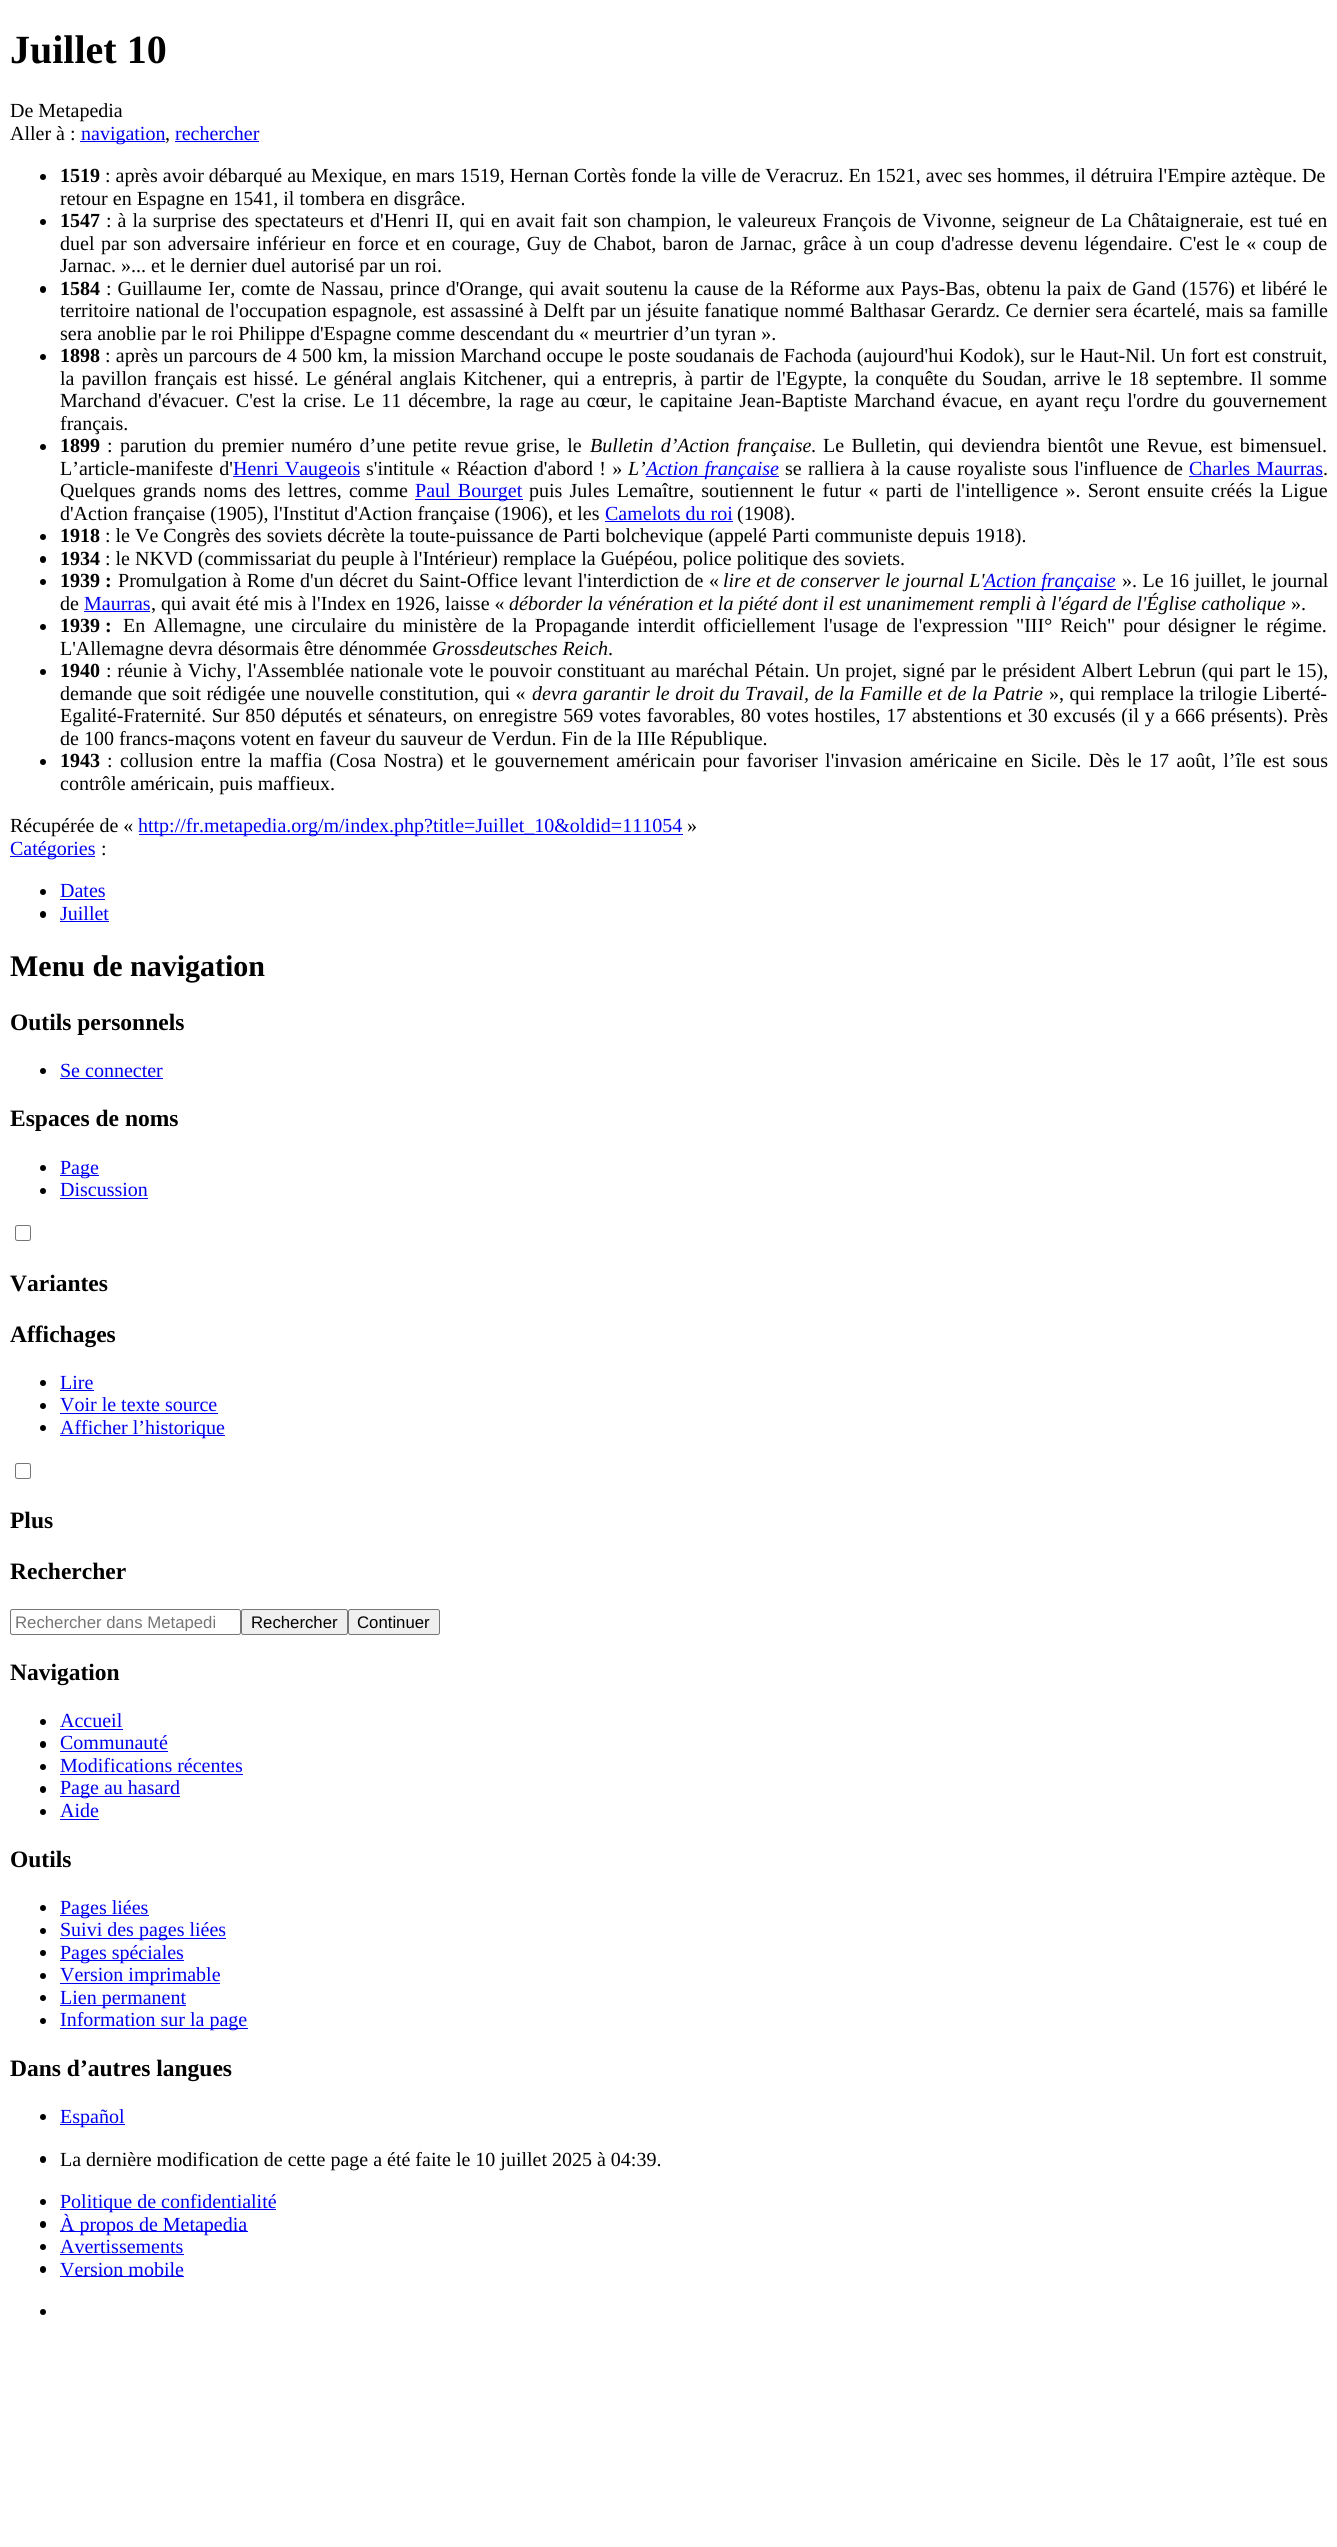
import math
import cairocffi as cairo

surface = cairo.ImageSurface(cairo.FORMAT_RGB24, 1337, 2547)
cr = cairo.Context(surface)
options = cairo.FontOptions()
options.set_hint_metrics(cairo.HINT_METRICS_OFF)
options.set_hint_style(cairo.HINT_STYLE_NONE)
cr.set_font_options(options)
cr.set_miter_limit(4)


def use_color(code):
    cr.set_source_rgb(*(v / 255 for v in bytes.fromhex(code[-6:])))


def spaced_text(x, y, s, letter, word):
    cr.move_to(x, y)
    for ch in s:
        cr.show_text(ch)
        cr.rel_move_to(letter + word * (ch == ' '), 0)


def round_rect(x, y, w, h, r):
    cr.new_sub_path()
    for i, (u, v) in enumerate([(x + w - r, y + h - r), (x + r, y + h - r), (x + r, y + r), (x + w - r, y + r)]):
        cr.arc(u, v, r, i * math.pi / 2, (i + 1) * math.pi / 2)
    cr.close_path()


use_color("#ffffff")
cr.paint()
cr.select_font_face("Liberation Serif", cairo.FONT_SLANT_NORMAL, cairo.FONT_WEIGHT_BOLD)
cr.set_font_size(40)
use_color("#000000")
cr.move_to(10, 63)
cr.show_text("Juillet 10")
cr.select_font_face("Liberation Serif")
cr.set_font_size(20)
cr.move_to(10, 117)
cr.show_text("De Metapedia")
cr.move_to(10, 140)
cr.show_text("Aller à :")
use_color("#0000ee")
cr.rectangle(80, 141, 85, 1)
cr.fill()
cr.move_to(81, 140)
cr.show_text("navigation")
use_color("#000000")
cr.move_to(165, 140)
cr.show_text(",")
use_color("#0000ee")
cr.move_to(175, 140)
cr.show_text("rechercher")
cr.rectangle(175, 141, 84, 1)
cr.fill()
use_color("#000000")
cr.arc(43, 177, 3, 0, 2 * math.pi)
cr.fill()
cr.select_font_face("Liberation Serif", cairo.FONT_SLANT_NORMAL, cairo.FONT_WEIGHT_BOLD)
cr.move_to(60, 182)
cr.show_text("1519")
cr.select_font_face("Liberation Serif")
cr.move_to(105, 182)
cr.show_text(": après avoir débarqué au Mexique, en mars 1519, Hernan Cortès fonde la ville de Veracruz. En 1521, avec ses hommes, il détruira l'Empire aztèque. De")
cr.move_to(60, 205)
cr.show_text("retour en Espagne en 1541, il tombera en disgrâce.")
cr.new_path()
cr.arc(43, 222, 3, 0, 2 * math.pi)
cr.fill()
cr.select_font_face("Liberation Serif", cairo.FONT_SLANT_NORMAL, cairo.FONT_WEIGHT_BOLD)
cr.move_to(60, 227)
cr.show_text("1547")
cr.select_font_face("Liberation Serif")
spaced_text(106, 227, ": à la surprise des spectateurs et d'Henri II, qui en avait fait son champion, le valeureux François de Vivonne, seigneur de La Châtaigneraie, est tué en", 0, 1)
spaced_text(60, 250, "duel par son adversaire inférieur en force et en courage, Guy de Chabot, baron de Jarnac, grâce à un coup d'adresse devenu légendaire. C'est le « coup de", 0, 1.65)
cr.move_to(60, 272)
cr.show_text("Jarnac. »... et le dernier duel autorisé par un roi.")
round_rect(40, 286, 6, 7, 3)
cr.fill()
cr.select_font_face("Liberation Serif", cairo.FONT_SLANT_NORMAL, cairo.FONT_WEIGHT_BOLD)
cr.move_to(60, 295)
cr.show_text("1584")
cr.select_font_face("Liberation Serif")
spaced_text(106, 295, ": Guillaume Ier, comte de Nassau, prince d'Orange, qui avait soutenu la cause de la Réforme aux Pays-Bas, obtenu la paix de Gand (1576) et libéré le", 0, 1)
spaced_text(60, 317, "territoire national de l'occupation espagnole, est assassiné à Delft par un jésuite fanatique nommé Balthasar Gerardz. Ce dernier sera écartelé, mais sa famille", 0, 0.5)
cr.move_to(60, 340)
cr.show_text("sera anoblie par le roi Philippe d'Espagne comme descendant du « meurtrier d’un tyran ».")
cr.new_path()
cr.arc(43, 357, 3, 0, 2 * math.pi)
cr.fill()
cr.select_font_face("Liberation Serif", cairo.FONT_SLANT_NORMAL, cairo.FONT_WEIGHT_BOLD)
cr.move_to(60, 362)
cr.show_text("1898")
cr.select_font_face("Liberation Serif")
spaced_text(105, 362, ": après un parcours de 4 500 km, la mission Marchand occupe le poste soudanais de Fachoda (aujourd'hui Kodok), sur le Haut-Nil. Un fort est construit,", 0, 0.25)
spaced_text(60, 385, "la pavillon français est hissé. Le général anglais Kitchener, qui a entrepris, à partir de l'Egypte, la conquête du Soudan, arrive le 18 septembre. Il somme", 0, 2)
spaced_text(60, 407, "Marchand d'évacuer. C'est la crise. Le 11 décembre, la rage au cœur, le capitaine Jean-Baptiste Marchand évacue, en ayant reçu l'ordre du gouvernement", 0, 2)
cr.move_to(60, 430)
cr.show_text("français.")
cr.new_path()
cr.arc(43, 447, 3, 0, 2 * math.pi)
cr.fill()
cr.select_font_face("Liberation Serif", cairo.FONT_SLANT_NORMAL, cairo.FONT_WEIGHT_BOLD)
cr.move_to(60, 452)
cr.show_text("1899")
cr.select_font_face("Liberation Serif")
spaced_text(107, 452, ": parution du premier numéro d’une petite revue grise, le", 0, 2.4)
cr.select_font_face("Liberation Serif", cairo.FONT_SLANT_ITALIC)
spaced_text(590, 452, "Bulletin d’Action française.", 0, 2.4)
cr.select_font_face("Liberation Serif")
spaced_text(823, 452, "Le Bulletin, qui deviendra bientôt une Revue, est bimensuel.", 0, 2.4)
spaced_text(60, 475, "L’article-manifeste d'", 0, 1)
use_color("#0000ee")
cr.rectangle(233, 476, 127, 1)
cr.fill()
spaced_text(233, 475, "Henri Vaugeois", 0, 1.25)
use_color("#000000")
spaced_text(366, 475, "s'intitule « Réaction d'abord ! »", 0, 1.25)
cr.select_font_face("Liberation Serif", cairo.FONT_SLANT_ITALIC)
cr.move_to(628, 475)
cr.show_text("L’")
use_color("#0000ee")
cr.rectangle(646, 476, 133, 1)
cr.fill()
spaced_text(646, 475, "Action française", 0, 1.25)
cr.select_font_face("Liberation Serif")
use_color("#000000")
spaced_text(785, 475, "se ralliera à la cause royaliste sous l'influence de", 0, 1.25)
use_color("#0000ee")
spaced_text(1189, 475, "Charles Maurras", 0, 1.25)
cr.rectangle(1189, 476, 134, 1)
cr.fill()
use_color("#000000")
cr.move_to(1323, 475)
cr.show_text(".")
spaced_text(60, 497, "Quelques grands noms des lettres, comme", 0, 2.25)
use_color("#0000ee")
cr.rectangle(415, 499, 108, 1)
cr.fill()
spaced_text(415, 497, "Paul Bourget", 0, 2.25)
use_color("#000000")
spaced_text(529, 497, "puis Jules Lemaître, soutiennent le futur « parti de l'intelligence ». Seront ensuite créés la Ligue", 0, 2.25)
cr.move_to(60, 520)
cr.show_text("d'Action française (1905), l'Institut d'Action française (1906), et les")
use_color("#0000ee")
cr.move_to(605, 520)
cr.show_text("Camelots du roi")
cr.rectangle(605, 521, 128, 1)
cr.fill()
use_color("#000000")
cr.move_to(737, 520)
cr.show_text("(1908).")
cr.new_path()
cr.arc(43, 537, 3, 0, 2 * math.pi)
cr.fill()
cr.select_font_face("Liberation Serif", cairo.FONT_SLANT_NORMAL, cairo.FONT_WEIGHT_BOLD)
cr.move_to(60, 542)
cr.show_text("1918")
cr.select_font_face("Liberation Serif")
cr.move_to(105, 542)
cr.show_text(": le Ve Congrès des soviets décrète la toute-puissance de Parti bolchevique (appelé Parti communiste depuis 1918).")
round_rect(40, 556, 6, 7, 3)
cr.fill()
cr.select_font_face("Liberation Serif", cairo.FONT_SLANT_NORMAL, cairo.FONT_WEIGHT_BOLD)
cr.move_to(60, 565)
cr.show_text("1934")
cr.select_font_face("Liberation Serif")
cr.move_to(105, 565)
cr.show_text(": le NKVD (commissariat du peuple à l'Intérieur) remplace la Guépéou, police politique des soviets.")
cr.new_path()
cr.arc(43, 582, 3, 0, 2 * math.pi)
cr.fill()
cr.select_font_face("Liberation Serif", cairo.FONT_SLANT_NORMAL, cairo.FONT_WEIGHT_BOLD)
cr.move_to(60, 587)
cr.show_text("1939 :")
cr.select_font_face("Liberation Serif")
spaced_text(118, 587, "Promulgation à Rome d'un décret du Saint-Office levant l'interdiction de «", 0, 0.5)
cr.select_font_face("Liberation Serif", cairo.FONT_SLANT_ITALIC)
spaced_text(723, 587, "lire et de conserver le journal L'", 0, 0.5)
use_color("#0000ee")
cr.rectangle(984, 589, 132, 1)
cr.fill()
cr.move_to(984, 587)
cr.show_text("Action française")
cr.select_font_face("Liberation Serif")
use_color("#000000")
spaced_text(1122, 587, "». Le 16 juillet, le journal", 0, 0.5)
cr.move_to(60, 610)
cr.show_text("de")
use_color("#0000ee")
cr.move_to(84, 610)
cr.show_text("Maurras")
cr.rectangle(84, 611, 66, 1)
cr.fill()
use_color("#000000")
cr.move_to(151, 610)
cr.show_text(", qui avait été mis à l'Index en 1926, laisse «")
cr.select_font_face("Liberation Serif", cairo.FONT_SLANT_ITALIC)
cr.move_to(509, 610)
cr.show_text("déborder la vénération et la piété dont il est unanimement rempli à l'égard de l'Église catholique")
cr.select_font_face("Liberation Serif")
cr.move_to(1291, 610)
cr.show_text("».")
cr.new_path()
cr.arc(43, 627, 3, 0, 2 * math.pi)
cr.fill()
cr.select_font_face("Liberation Serif", cairo.FONT_SLANT_NORMAL, cairo.FONT_WEIGHT_BOLD)
cr.move_to(60, 632)
cr.show_text("1939 :")
cr.select_font_face("Liberation Serif")
spaced_text(123, 632, "En Allemagne, une circulaire du ministère de la Propagande interdit officiellement l'usage de l'expression \"III° Reich\" pour désigner le régime.", 0, 3.1)
cr.move_to(60, 655)
cr.show_text("L'Allemagne devra désormais être dénommée")
cr.select_font_face("Liberation Serif", cairo.FONT_SLANT_ITALIC)
cr.move_to(432, 655)
cr.show_text("Grossdeutsches Reich")
cr.select_font_face("Liberation Serif")
cr.move_to(608, 655)
cr.show_text(".")
cr.new_path()
cr.arc(43, 672, 3, 0, 2 * math.pi)
cr.fill()
cr.select_font_face("Liberation Serif", cairo.FONT_SLANT_NORMAL, cairo.FONT_WEIGHT_BOLD)
cr.move_to(60, 677)
cr.show_text("1940")
cr.select_font_face("Liberation Serif")
spaced_text(106, 677, ": réunie à Vichy, l'Assemblée nationale vote le pouvoir constituant au maréchal Pétain. Un projet, signé par le président Albert Lebrun (qui part le 15),", 0, 0.75)
spaced_text(60, 700, "demande que soit rédigée une nouvelle constitution, qui «", 0, 0.5)
cr.select_font_face("Liberation Serif", cairo.FONT_SLANT_ITALIC)
spaced_text(532, 700, "devra garantir le droit du Travail, de la Famille et de la Patrie", 0, 0.5)
cr.select_font_face("Liberation Serif")
spaced_text(1049, 700, "», qui remplace la trilogie Liberté-", 0, 0.5)
spaced_text(60, 722, "Egalité-Fraternité. Sur 850 députés et sénateurs, on enregistre 569 votes favorables, 80 votes hostiles, 17 abstentions et 30 excusés (il y a 666 présents). Près", 0, 0.7)
cr.move_to(60, 745)
cr.show_text("de 100 francs-maçons votent en faveur du sauveur de Verdun. Fin de la IIIe République.")
cr.new_path()
cr.arc(43, 762, 3, 0, 2 * math.pi)
cr.fill()
cr.select_font_face("Liberation Serif", cairo.FONT_SLANT_NORMAL, cairo.FONT_WEIGHT_BOLD)
cr.move_to(60, 767)
cr.show_text("1943")
cr.select_font_face("Liberation Serif")
spaced_text(107, 767, ": collusion entre la maffia (Cosa Nostra) et le gouvernement américain pour favoriser l'invasion américaine en Sicile. Dès le 17 août, l’île est sous", 0, 2.4)
cr.move_to(60, 790)
cr.show_text("contrôle américain, puis maffieux.")
cr.move_to(10, 832)
cr.show_text("Récupérée de «")
use_color("#0000ee")
cr.rectangle(139, 834, 544, 1)
cr.fill()
cr.move_to(138, 832)
cr.show_text("http://fr.metapedia.org/m/index.php?title=Juillet_10&oldid=111054")
use_color("#000000")
cr.move_to(687, 832)
cr.show_text("»")
use_color("#0000ee")
cr.rectangle(10, 856, 85, 1)
cr.fill()
cr.move_to(10, 855)
cr.show_text("Catégories")
use_color("#000000")
cr.move_to(101, 855)
cr.show_text(":")
cr.new_path()
cr.arc(43, 892, 3, 0, 2 * math.pi)
cr.fill()
use_color("#0000ee")
cr.move_to(60, 897)
cr.show_text("Dates")
cr.rectangle(60, 899, 45, 1)
cr.fill()
use_color("#000000")
round_rect(40, 911, 6, 7, 3)
cr.fill()
use_color("#0000ee")
cr.move_to(60, 920)
cr.show_text("Juillet")
cr.rectangle(60, 921, 49, 1)
cr.fill()
cr.select_font_face("Liberation Serif", cairo.FONT_SLANT_NORMAL, cairo.FONT_WEIGHT_BOLD)
cr.set_font_size(30)
use_color("#000000")
cr.move_to(10, 976)
cr.show_text("Menu de navigation")
cr.set_font_size(23.5)
cr.move_to(10, 1030)
cr.show_text("Outils personnels")
cr.new_path()
cr.arc(43, 1071, 3, 0, 2 * math.pi)
cr.fill()
cr.select_font_face("Liberation Serif")
cr.set_font_size(20)
use_color("#0000ee")
cr.move_to(60, 1077)
cr.show_text("Se connecter")
cr.rectangle(60, 1078, 103, 1)
cr.fill()
cr.select_font_face("Liberation Serif", cairo.FONT_SLANT_NORMAL, cairo.FONT_WEIGHT_BOLD)
cr.set_font_size(23.5)
use_color("#000000")
cr.move_to(10, 1126)
cr.show_text("Espaces de noms")
cr.new_path()
cr.arc(43, 1168, 3, 0, 2 * math.pi)
cr.fill()
use_color("#0000ee")
cr.rectangle(60, 1175, 39, 1)
cr.fill()
cr.select_font_face("Liberation Serif")
cr.set_font_size(20)
cr.move_to(60, 1174)
cr.show_text("Page")
use_color("#000000")
cr.new_path()
cr.arc(43, 1191, 3, 0, 2 * math.pi)
cr.fill()
use_color("#0000ee")
cr.move_to(60, 1196)
cr.show_text("Discussion")
cr.rectangle(60, 1198, 88, 1)
cr.fill()
round_rect(15.5, 1225.5, 15, 15, 2)
use_color("#767676")
cr.set_line_width(1)
cr.stroke()
cr.select_font_face("Liberation Serif", cairo.FONT_SLANT_NORMAL, cairo.FONT_WEIGHT_BOLD)
cr.set_font_size(23.5)
use_color("#000000")
cr.move_to(10, 1291)
cr.show_text("Variantes")
cr.move_to(10, 1342)
cr.show_text("Affichages")
cr.new_path()
cr.arc(43, 1383, 3, 0, 2 * math.pi)
cr.fill()
cr.select_font_face("Liberation Serif")
cr.set_font_size(20)
use_color("#0000ee")
cr.move_to(60, 1389)
cr.show_text("Lire")
cr.rectangle(60, 1390, 34, 1)
cr.fill()
use_color("#000000")
cr.arc(43, 1406, 3, 0, 2 * math.pi)
cr.fill()
use_color("#0000ee")
cr.move_to(60, 1411)
cr.show_text("Voir le texte source")
cr.rectangle(60, 1413, 158, 1)
cr.fill()
use_color("#000000")
cr.arc(43, 1428, 3, 0, 2 * math.pi)
cr.fill()
use_color("#0000ee")
cr.rectangle(60, 1435, 165, 1)
cr.fill()
cr.move_to(60, 1434)
cr.show_text("Afficher l’historique")
round_rect(15.5, 1463.5, 15, 15, 2)
use_color("#767676")
cr.stroke()
cr.select_font_face("Liberation Serif", cairo.FONT_SLANT_NORMAL, cairo.FONT_WEIGHT_BOLD)
cr.set_font_size(23.5)
use_color("#000000")
cr.move_to(10, 1528)
cr.show_text("Plus")
cr.move_to(10, 1579)
cr.show_text("Rechercher")
round_rect(10.5, 1609.5, 230, 25, 2)
use_color("#767676")
cr.stroke()
cr.save()
cr.rectangle(15, 1613, 205, 18)
cr.clip()
cr.select_font_face("Liberation Sans")
cr.set_font_size(16.75)
use_color("#757575")
cr.move_to(15, 1628)
cr.show_text("Rechercher dans Metapedi")
cr.restore()
use_color("#efefef")
round_rect(241.5, 1609.5, 106, 25, 2)
cr.fill_preserve()
use_color("#767676")
cr.stroke()
cr.select_font_face("Liberation Sans")
cr.set_font_size(16.75)
use_color("#000000")
cr.move_to(251, 1628)
cr.show_text("Rechercher")
use_color("#efefef")
round_rect(348.5, 1609.5, 91, 25, 2)
cr.fill_preserve()
use_color("#767676")
cr.stroke()
use_color("#000000")
cr.move_to(357, 1628)
cr.show_text("Continuer")
cr.select_font_face("Liberation Serif", cairo.FONT_SLANT_NORMAL, cairo.FONT_WEIGHT_BOLD)
cr.set_font_size(23.5)
cr.move_to(10, 1680)
cr.show_text("Navigation")
cr.new_path()
cr.arc(43, 1722, 3, 0, 2 * math.pi)
cr.fill()
cr.select_font_face("Liberation Serif")
cr.set_font_size(20)
use_color("#0000ee")
cr.move_to(60, 1727)
cr.show_text("Accueil")
cr.rectangle(60, 1729, 63, 1)
cr.fill()
use_color("#000000")
round_rect(40, 1741, 6, 7, 3)
cr.fill()
use_color("#0000ee")
cr.move_to(60, 1749)
cr.show_text("Communauté")
cr.rectangle(60, 1751, 108, 1)
cr.fill()
use_color("#000000")
cr.arc(43, 1767, 3, 0, 2 * math.pi)
cr.fill()
use_color("#0000ee")
cr.move_to(60, 1772)
cr.show_text("Modifications récentes")
cr.rectangle(60, 1774, 183, 1)
cr.fill()
use_color("#000000")
round_rect(40, 1786, 6, 7, 3)
cr.fill()
use_color("#0000ee")
cr.rectangle(60, 1796, 120, 1)
cr.fill()
cr.move_to(60, 1794)
cr.show_text("Page au hasard")
use_color("#000000")
cr.new_path()
cr.arc(43, 1812, 3, 0, 2 * math.pi)
cr.fill()
use_color("#0000ee")
cr.move_to(60, 1817)
cr.show_text("Aide")
cr.rectangle(60, 1819, 39, 1)
cr.fill()
cr.select_font_face("Liberation Serif", cairo.FONT_SLANT_NORMAL, cairo.FONT_WEIGHT_BOLD)
cr.set_font_size(23.5)
use_color("#000000")
cr.move_to(10, 1867)
cr.show_text("Outils")
cr.new_path()
cr.arc(43, 1908, 3, 0, 2 * math.pi)
cr.fill()
use_color("#0000ee")
cr.rectangle(60, 1915, 89, 1)
cr.fill()
cr.select_font_face("Liberation Serif")
cr.set_font_size(20)
cr.move_to(60, 1914)
cr.show_text("Pages liées")
use_color("#000000")
cr.new_path()
cr.arc(43, 1931, 3, 0, 2 * math.pi)
cr.fill()
use_color("#0000ee")
cr.rectangle(60, 1938, 166, 1)
cr.fill()
cr.move_to(60, 1936)
cr.show_text("Suivi des pages liées")
use_color("#000000")
cr.new_path()
cr.arc(43, 1953, 3, 0, 2 * math.pi)
cr.fill()
use_color("#0000ee")
cr.rectangle(60, 1960, 124, 1)
cr.fill()
cr.move_to(60, 1959)
cr.show_text("Pages spéciales")
use_color("#000000")
cr.new_path()
cr.arc(43, 1976, 3, 0, 2 * math.pi)
cr.fill()
use_color("#0000ee")
cr.rectangle(60, 1983, 160, 1)
cr.fill()
cr.move_to(60, 1981)
cr.show_text("Version imprimable")
use_color("#000000")
cr.new_path()
cr.arc(43, 1998, 3, 0, 2 * math.pi)
cr.fill()
use_color("#0000ee")
cr.rectangle(60, 2005, 126, 1)
cr.fill()
cr.move_to(60, 2004)
cr.show_text("Lien permanent")
use_color("#000000")
cr.new_path()
cr.arc(43, 2021, 3, 0, 2 * math.pi)
cr.fill()
use_color("#0000ee")
cr.rectangle(60, 2028, 188, 1)
cr.fill()
cr.move_to(60, 2026)
cr.show_text("Information sur la page")
cr.select_font_face("Liberation Serif", cairo.FONT_SLANT_NORMAL, cairo.FONT_WEIGHT_BOLD)
cr.set_font_size(23.5)
use_color("#000000")
cr.move_to(10, 2076)
cr.show_text("Dans d’autres langues")
cr.new_path()
cr.arc(43, 2117, 3, 0, 2 * math.pi)
cr.fill()
use_color("#0000ee")
cr.rectangle(60, 2124, 65, 1)
cr.fill()
cr.select_font_face("Liberation Serif")
cr.set_font_size(20)
cr.move_to(60, 2123)
cr.show_text("Español")
use_color("#000000")
round_rect(40, 2156, 6, 7, 3)
cr.fill()
cr.move_to(60, 2166)
cr.show_text("La dernière modification de cette page a été faite le 10 juillet 2025 à 04:39.")
cr.new_path()
cr.arc(43, 2202, 3, 0, 2 * math.pi)
cr.fill()
use_color("#0000ee")
cr.rectangle(60, 2209, 216, 1)
cr.fill()
cr.move_to(60, 2208)
cr.show_text("Politique de confidentialité")
use_color("#000000")
round_rect(40, 2221, 6, 7, 3)
cr.fill()
use_color("#0000ee")
cr.rectangle(60, 2231, 188, 1)
cr.fill()
cr.move_to(60, 2231)
cr.show_text("À propos de Metapedia")
use_color("#000000")
cr.new_path()
cr.arc(43, 2247, 3, 0, 2 * math.pi)
cr.fill()
use_color("#0000ee")
cr.move_to(60, 2253)
cr.show_text("Avertissements")
cr.rectangle(60, 2254, 124, 1)
cr.fill()
use_color("#000000")
round_rect(40, 2266, 6, 7, 3)
cr.fill()
use_color("#0000ee")
cr.rectangle(60, 2276, 124, 1)
cr.fill()
cr.move_to(60, 2276)
cr.show_text("Version mobile")
use_color("#000000")
cr.new_path()
cr.arc(43, 2312, 3, 0, 2 * math.pi)
cr.fill()
surface.write_to_png("result.png")
